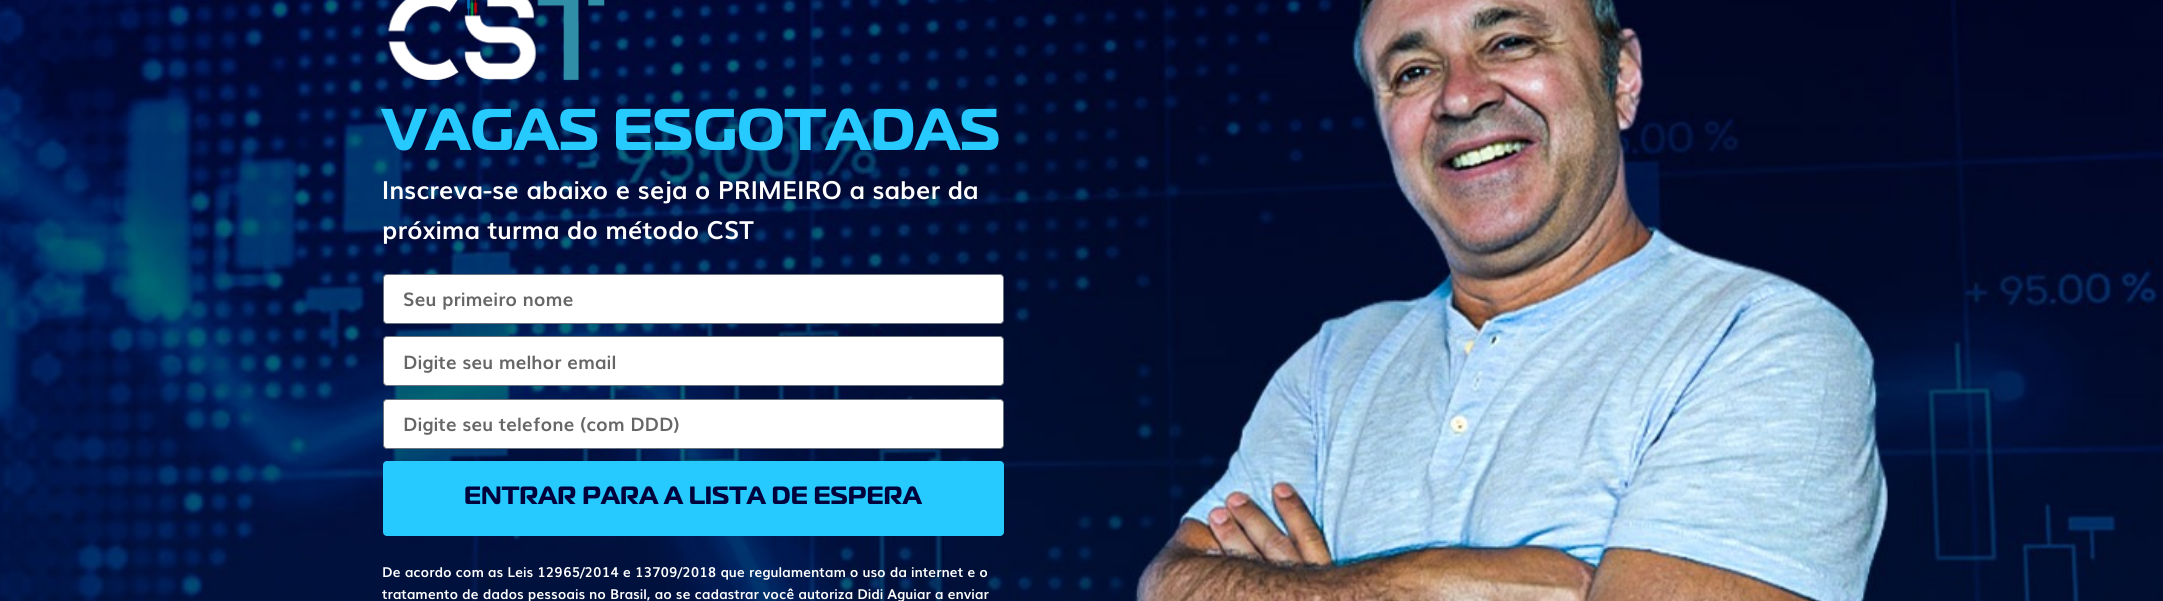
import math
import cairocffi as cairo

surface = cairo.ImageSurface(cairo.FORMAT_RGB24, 2163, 601)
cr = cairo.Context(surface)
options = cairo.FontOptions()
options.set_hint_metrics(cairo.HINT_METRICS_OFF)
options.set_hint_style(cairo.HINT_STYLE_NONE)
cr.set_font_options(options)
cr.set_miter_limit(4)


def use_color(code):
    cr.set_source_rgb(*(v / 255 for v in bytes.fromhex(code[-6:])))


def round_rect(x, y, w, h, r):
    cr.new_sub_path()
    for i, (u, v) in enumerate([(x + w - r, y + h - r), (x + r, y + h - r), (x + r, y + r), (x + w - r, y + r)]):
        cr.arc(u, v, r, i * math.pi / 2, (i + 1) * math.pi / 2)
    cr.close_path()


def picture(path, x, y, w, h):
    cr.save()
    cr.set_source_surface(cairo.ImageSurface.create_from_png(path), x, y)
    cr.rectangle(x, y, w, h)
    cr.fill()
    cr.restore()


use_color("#ffffff")
cr.paint()
picture("img1.png", 0, 0, 2163, 601)
picture("img2.png", 388, 0, 217, 80)
cr.select_font_face("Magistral", cairo.FONT_SLANT_NORMAL, cairo.FONT_WEIGHT_BOLD)
cr.set_font_size(58.75)
use_color("#27caff")
cr.move_to(382, 150)
cr.show_text("VAGAS ESGOTADAS")
cr.select_font_face("Muli", cairo.FONT_SLANT_NORMAL, cairo.FONT_WEIGHT_BOLD)
cr.set_font_size(25)
use_color("#ffffff")
cr.move_to(382, 199)
cr.show_text("Inscreva-se abaixo e seja o PRIMEIRO a saber da")
cr.move_to(382, 239)
cr.show_text("próxima turma do método CST")
round_rect(383.5, 274.5, 620, 49, 3.5)
cr.fill_preserve()
use_color("#69727d")
cr.set_line_width(1)
cr.stroke()
cr.set_font_size(18.75)
use_color("#666666")
cr.move_to(403, 306)
cr.show_text("Seu primeiro nome")
use_color("#ffffff")
round_rect(383.5, 336.5, 620, 49, 3.5)
cr.fill_preserve()
use_color("#69727d")
cr.stroke()
use_color("#666666")
cr.move_to(403, 369)
cr.show_text("Digite seu melhor email")
use_color("#ffffff")
round_rect(383.5, 399.5, 620, 49, 3.5)
cr.fill_preserve()
use_color("#69727d")
cr.stroke()
use_color("#666666")
cr.move_to(403, 431)
cr.show_text("Digite seu telefone (com DDD)")
use_color("#27caff")
round_rect(383, 461, 621, 75, 4)
cr.fill()
cr.select_font_face("Magistral", cairo.FONT_SLANT_NORMAL, cairo.FONT_WEIGHT_BOLD)
cr.set_font_size(25)
use_color("#00033b")
cr.move_to(464, 504)
cr.show_text("ENTRAR PARA A LISTA DE ESPERA")
cr.select_font_face("Muli", cairo.FONT_SLANT_NORMAL, cairo.FONT_WEIGHT_BOLD)
cr.set_font_size(13.75)
use_color("#ffffff")
cr.move_to(382, 577)
cr.show_text("De acordo com as Leis 12965/2014 e 13709/2018 que regulamentam o uso da internet e o")
cr.move_to(382, 599)
cr.show_text("tratamento de dados pessoais no Brasil, ao se cadastrar você autoriza Didi Aguiar a enviar")
surface.write_to_png("result.png")
